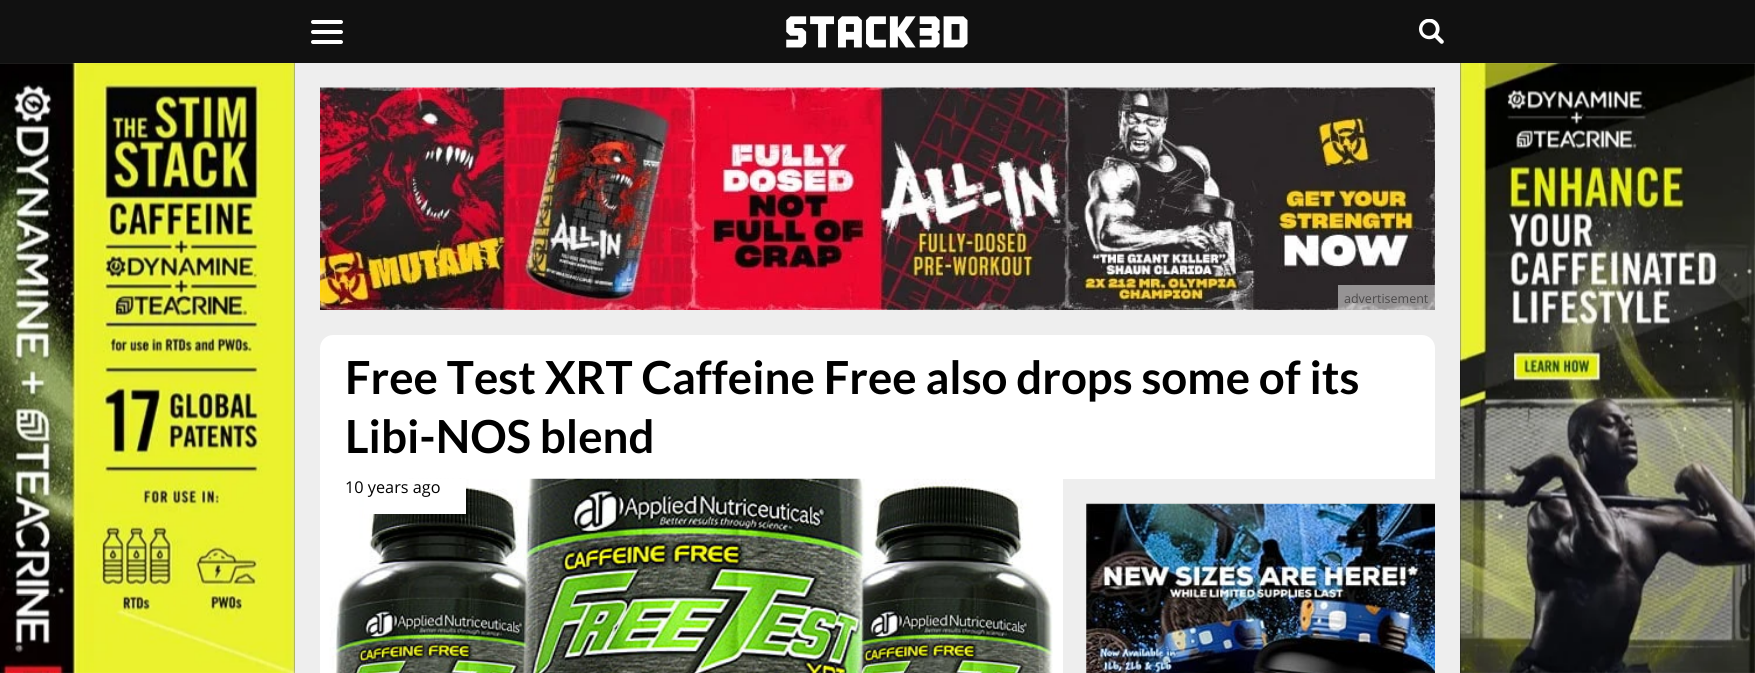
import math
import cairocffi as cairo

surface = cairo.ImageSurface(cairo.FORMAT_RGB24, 1755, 673)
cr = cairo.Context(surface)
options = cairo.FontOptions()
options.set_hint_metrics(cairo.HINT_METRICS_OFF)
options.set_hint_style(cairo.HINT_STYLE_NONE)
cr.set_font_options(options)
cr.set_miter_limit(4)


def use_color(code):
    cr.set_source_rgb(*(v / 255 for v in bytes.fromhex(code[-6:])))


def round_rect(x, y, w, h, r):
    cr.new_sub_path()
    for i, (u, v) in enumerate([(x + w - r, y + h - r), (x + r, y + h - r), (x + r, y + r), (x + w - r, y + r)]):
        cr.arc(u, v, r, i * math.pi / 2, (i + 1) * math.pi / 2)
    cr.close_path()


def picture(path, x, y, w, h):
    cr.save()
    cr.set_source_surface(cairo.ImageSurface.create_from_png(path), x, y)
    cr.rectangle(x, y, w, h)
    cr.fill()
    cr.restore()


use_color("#ffffff")
cr.paint()
picture("img1.png", 0, 63, 1755, 610)
use_color("#111111")
cr.rectangle(0, 0, 1755, 63)
cr.fill()
use_color("#ffffff")
round_rect(311, 30, 32, 4, 2)
cr.fill()
round_rect(311, 20, 32, 4, 2)
cr.fill()
round_rect(311, 40, 32, 4, 2)
cr.fill()
picture("img2.png", 786, 16, 182, 32)
picture("img3.png", 1419, 19, 25, 25)
use_color("#eeeeee")
cr.rectangle(295, 63, 1165, 610)
cr.fill()
picture("img4.png", 320, 87, 1115, 223)
cr.set_source_rgba(1, 1, 1, 0.5)
cr.rectangle(1338, 285, 97, 25)
cr.fill()
cr.select_font_face("Open Sans")
cr.set_font_size(12.5)
use_color("#4b494a")
cr.move_to(1344, 303)
cr.show_text("advertisement")
use_color("#ffffff")
cr.new_path()
cr.move_to(333, 335)
cr.line_to(1422, 335)
cr.curve_to(1429, 335, 1435, 341, 1435, 348)
cr.line_to(1435, 479)
cr.line_to(320, 479)
cr.line_to(320, 348)
cr.curve_to(320, 341, 326, 335, 333, 335)
cr.close_path()
cr.fill()
cr.select_font_face("Lato", cairo.FONT_SLANT_NORMAL, cairo.FONT_WEIGHT_BOLD)
cr.set_font_size(45.6)
use_color("#000000")
cr.move_to(345, 394)
cr.show_text("Free Test XRT Caffeine Free also drops some of its")
cr.move_to(345, 453)
cr.show_text("Libi-NOS blend")
use_color("#ffffff")
cr.rectangle(320, 479, 743, 194)
cr.fill()
picture("img5.png", 329, 478, 724, 195)
cr.rectangle(364, 479, 102, 35)
cr.fill()
cr.select_font_face("Open Sans")
cr.set_font_size(16.25)
use_color("#000000")
cr.move_to(345, 493)
cr.show_text("10 years ago")
picture("img6.png", 1086, 503, 349, 170)
surface.write_to_png("result.png")
